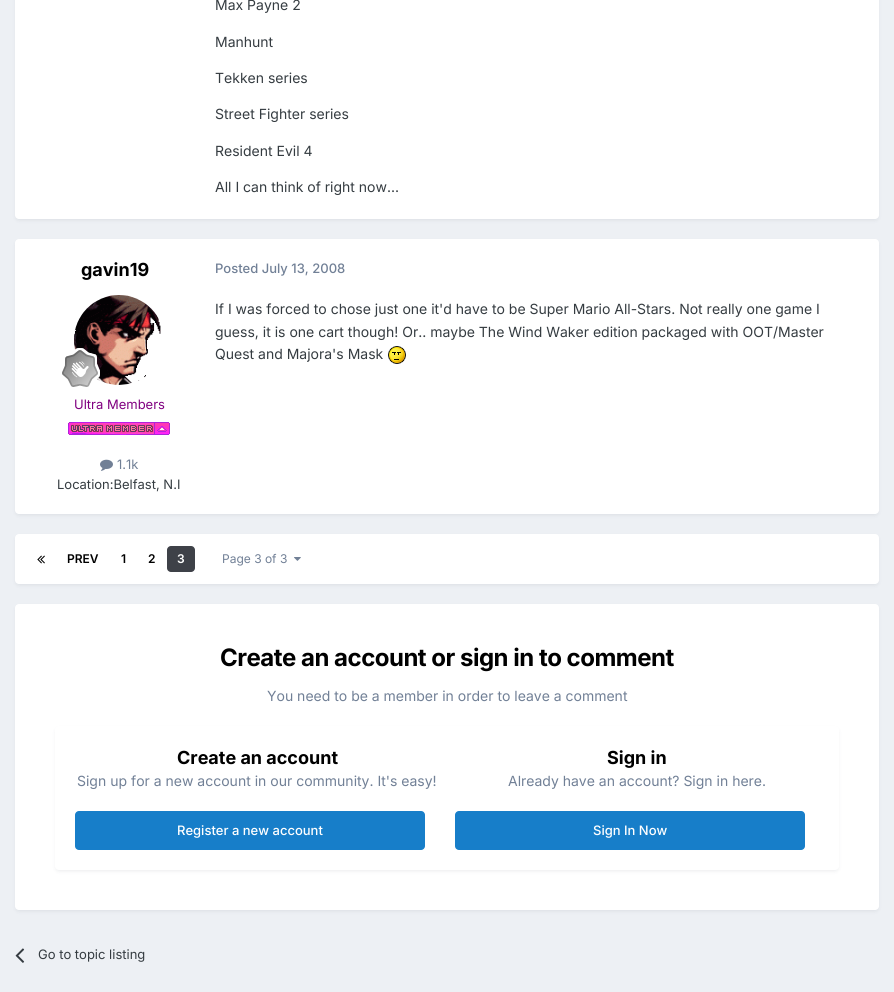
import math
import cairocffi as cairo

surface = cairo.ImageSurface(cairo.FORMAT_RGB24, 894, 992)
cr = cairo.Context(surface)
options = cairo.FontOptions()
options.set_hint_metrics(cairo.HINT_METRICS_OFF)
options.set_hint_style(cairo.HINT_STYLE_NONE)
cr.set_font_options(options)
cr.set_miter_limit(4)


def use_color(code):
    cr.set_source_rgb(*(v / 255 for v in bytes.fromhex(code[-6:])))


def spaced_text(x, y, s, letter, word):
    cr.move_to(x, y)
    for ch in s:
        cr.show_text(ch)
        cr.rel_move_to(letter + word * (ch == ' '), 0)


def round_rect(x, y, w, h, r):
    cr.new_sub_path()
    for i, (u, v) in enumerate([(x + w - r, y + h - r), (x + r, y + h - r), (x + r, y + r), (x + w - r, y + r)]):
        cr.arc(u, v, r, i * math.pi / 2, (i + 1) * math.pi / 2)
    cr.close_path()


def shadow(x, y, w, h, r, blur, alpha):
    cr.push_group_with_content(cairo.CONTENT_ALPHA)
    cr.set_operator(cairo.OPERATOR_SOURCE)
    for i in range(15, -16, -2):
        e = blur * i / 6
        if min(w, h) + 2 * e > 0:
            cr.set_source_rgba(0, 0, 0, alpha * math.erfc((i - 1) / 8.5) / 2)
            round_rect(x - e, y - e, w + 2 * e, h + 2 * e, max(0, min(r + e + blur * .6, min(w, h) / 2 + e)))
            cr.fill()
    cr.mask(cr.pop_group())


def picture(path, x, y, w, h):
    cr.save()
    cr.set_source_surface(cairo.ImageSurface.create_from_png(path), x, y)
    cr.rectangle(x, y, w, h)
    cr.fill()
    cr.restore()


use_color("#edf0f4")
cr.paint()
use_color("#2d3748")
shadow(16, -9, 862, 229, 3, 2, 0.1)
use_color("#ffffff")
round_rect(15, -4, 864, 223, 4)
cr.fill()
cr.select_font_face("Inter")
cr.set_font_size(14)
use_color("#353c41")
cr.move_to(215, 10)
cr.show_text("Max Payne 2")
cr.move_to(215, 47)
cr.show_text("Manhunt")
cr.move_to(215, 83)
cr.show_text("Tekken series")
cr.move_to(215, 119)
cr.show_text("Street Fighter series")
cr.move_to(215, 156)
cr.show_text("Resident Evil 4")
cr.move_to(215, 192)
cr.show_text("All I can think of right now...")
use_color("#2d3748")
shadow(16, 242, 862, 273, 3, 2, 0.1)
use_color("#ffffff")
round_rect(15, 239, 864, 275, 4)
cr.fill()
cr.select_font_face("Inter", cairo.FONT_SLANT_NORMAL, cairo.FONT_WEIGHT_BOLD)
cr.set_font_size(18)
use_color("#000000")
cr.move_to(81, 276)
cr.show_text("gavin19")
picture("img1.png", 74, 295, 87, 90)
picture("img2.png", 62, 348, 38, 39)
cr.select_font_face("Inter")
cr.set_font_size(13)
use_color("#800080")
cr.move_to(74, 409)
cr.show_text("Ultra Members")
picture("img3.png", 68, 422, 102, 13)
picture("img4.png", 100, 459, 13, 12)
use_color("#718096")
cr.move_to(117, 469)
cr.show_text("1.1k")
use_color("#353c41")
cr.move_to(57, 489)
cr.show_text("Location:Belfast, N.I")
cr.select_font_face("Inter Medium")
use_color("#718096")
cr.move_to(215, 273)
cr.show_text("Posted July 13, 2008")
cr.select_font_face("Inter")
cr.set_font_size(14)
use_color("#353c41")
cr.move_to(215, 314)
cr.show_text("If I was forced to chose just one it'd have to be Super Mario All-Stars. Not really one game I")
cr.move_to(215, 337)
cr.show_text("guess, it is one cart though! Or.. maybe The Wind Waker edition packaged with OOT/Master")
cr.move_to(215, 359)
cr.show_text("Quest and Majora's Mask")
picture("img5.png", 388, 346, 18, 18)
use_color("#2d3748")
shadow(16, 537, 862, 48, 3, 2, 0.1)
use_color("#ffffff")
round_rect(15, 534, 864, 50, 4)
cr.fill()
picture("img6.png", 37, 555, 8, 9)
cr.select_font_face("Inter SemiBold")
cr.set_font_size(12)
use_color("#000000")
cr.move_to(67, 563)
cr.show_text("PREV")
cr.move_to(121, 563)
cr.show_text("1")
cr.move_to(148, 563)
cr.show_text("2")
use_color("#3e4148")
round_rect(167, 546, 28, 26, 4)
cr.fill()
use_color("#ffffff")
cr.move_to(177, 563)
cr.show_text("3")
cr.select_font_face("Inter")
use_color("#718096")
cr.move_to(222, 563)
cr.show_text("Page 3 of 3")
picture("img7.png", 294, 557, 7, 4)
use_color("#2d3748")
shadow(16, 607, 862, 304, 3, 2, 0.1)
use_color("#ffffff")
round_rect(15, 604, 864, 306, 4)
cr.fill()
cr.select_font_face("Inter", cairo.FONT_SLANT_NORMAL, cairo.FONT_WEIGHT_BOLD)
cr.set_font_size(24)
use_color("#000000")
spaced_text(220, 666, "Create an account or sign in to comment", -0.5, 0)
cr.select_font_face("Inter")
cr.set_font_size(14)
use_color("#718096")
cr.move_to(267, 701)
cr.show_text("You need to be a member in order to leave a comment")
use_color("#2d3748")
shadow(56, 729, 782, 142, 3, 2, 0.1)
use_color("#ffffff")
round_rect(55, 726, 784, 144, 4)
cr.fill()
cr.select_font_face("Inter", cairo.FONT_SLANT_NORMAL, cairo.FONT_WEIGHT_BOLD)
cr.set_font_size(18)
use_color("#000000")
cr.move_to(177, 764)
cr.show_text("Create an account")
cr.select_font_face("Inter")
cr.set_font_size(14)
use_color("#718096")
cr.move_to(77, 786)
cr.show_text("Sign up for a new account in our community. It's easy!")
use_color("#177ec9")
round_rect(75, 811, 350, 39, 4)
cr.fill()
cr.select_font_face("Inter Medium")
cr.set_font_size(13)
use_color("#ffffff")
cr.move_to(177, 835)
cr.show_text("Register a new account")
cr.select_font_face("Inter", cairo.FONT_SLANT_NORMAL, cairo.FONT_WEIGHT_BOLD)
cr.set_font_size(18)
use_color("#000000")
cr.move_to(607, 764)
cr.show_text("Sign in")
cr.select_font_face("Inter")
cr.set_font_size(14)
use_color("#718096")
cr.move_to(508, 786)
cr.show_text("Already have an account? Sign in here.")
use_color("#177ec9")
round_rect(455, 811, 350, 39, 4)
cr.fill()
cr.select_font_face("Inter Medium")
cr.set_font_size(13)
use_color("#ffffff")
cr.move_to(593, 835)
cr.show_text("Sign In Now")
picture("img8.png", 15, 948, 10, 15)
cr.select_font_face("Inter")
use_color("#353c41")
cr.move_to(38, 959)
cr.show_text("Go to topic listing")
surface.write_to_png("result.png")
